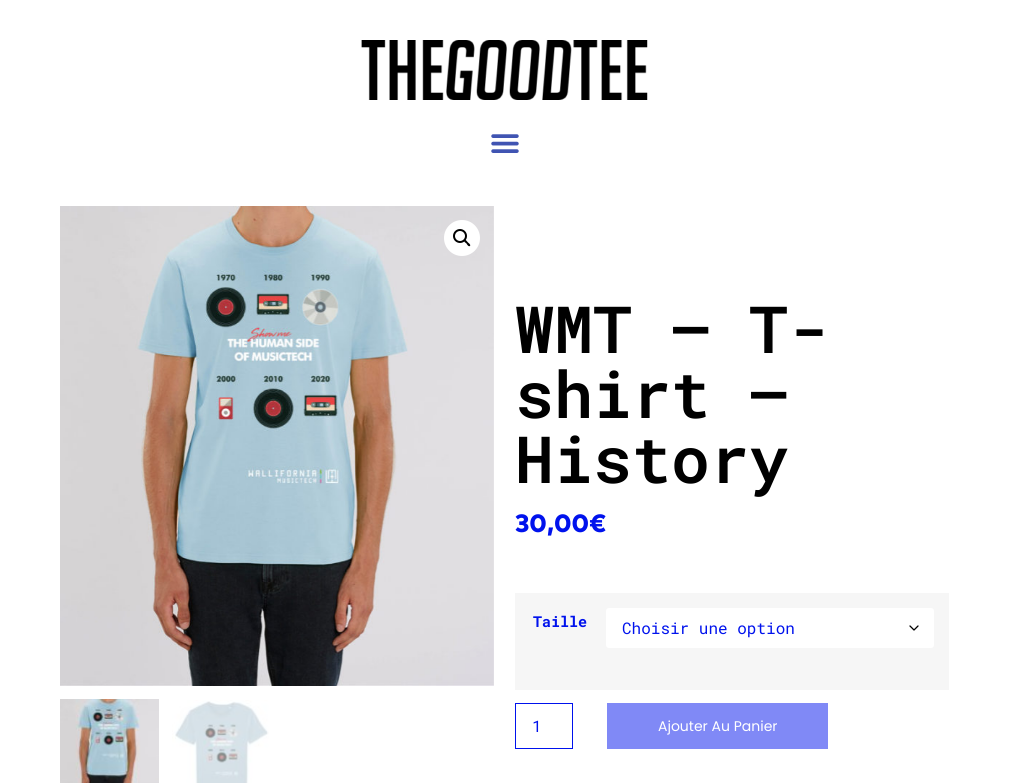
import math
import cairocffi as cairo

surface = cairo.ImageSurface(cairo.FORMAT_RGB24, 1009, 783)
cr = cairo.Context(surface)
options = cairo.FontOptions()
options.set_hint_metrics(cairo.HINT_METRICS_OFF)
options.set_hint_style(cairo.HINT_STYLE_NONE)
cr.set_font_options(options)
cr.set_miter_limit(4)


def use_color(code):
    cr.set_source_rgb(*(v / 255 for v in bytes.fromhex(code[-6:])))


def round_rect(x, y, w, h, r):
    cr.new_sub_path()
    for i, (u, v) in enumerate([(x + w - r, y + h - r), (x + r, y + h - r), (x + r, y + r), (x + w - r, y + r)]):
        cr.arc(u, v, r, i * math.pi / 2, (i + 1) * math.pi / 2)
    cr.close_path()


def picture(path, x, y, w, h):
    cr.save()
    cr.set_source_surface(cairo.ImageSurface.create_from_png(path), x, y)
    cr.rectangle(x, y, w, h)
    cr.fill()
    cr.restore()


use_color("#ffffff")
cr.paint()
picture("img1.png", 361, 40, 287, 60)
picture("img2.png", 491, 134, 28, 19)
picture("img3.png", 60, 206, 434, 480)
use_color("#ffffff")
cr.arc(462, 238, 18, 0, 2 * math.pi)
cr.fill()
cr.arc(460, 236, 6, 0, 2 * math.pi)
use_color("#000000")
cr.stroke()
cr.new_path()
cr.move_to(464.5, 240)
cr.curve_to(465.5, 239, 467, 241.5, 468, 242.5)
cr.curve_to(468.5, 243, 471, 244.5, 470, 246)
cr.curve_to(468.5, 247, 467, 244.5, 466.5, 243.5)
cr.curve_to(466, 243, 463, 241.5, 464.5, 240)
cr.close_path()
cr.fill()
picture("img4.png", 60, 699, 99, 84)
picture("img5.png", 172, 700, 97, 83)
cr.select_font_face("Roboto Mono SemiBold")
cr.set_font_size(65)
cr.move_to(515, 353)
cr.show_text("WMT – T-")
cr.move_to(515, 418)
cr.show_text("shirt –")
cr.move_to(515, 483)
cr.show_text("History")
cr.select_font_face("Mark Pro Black")
cr.set_font_size(25)
use_color("#0012ed")
cr.move_to(515, 532)
cr.show_text("30,00€")
use_color("#f6f6f6")
cr.rectangle(515, 593, 434, 97)
cr.fill()
cr.select_font_face("Roboto Mono", cairo.FONT_SLANT_NORMAL, cairo.FONT_WEIGHT_BOLD)
cr.set_font_size(15)
use_color("#0012ed")
cr.move_to(533, 627)
cr.show_text("Taille")
use_color("#ffffff")
round_rect(606, 608, 328, 40, 3)
cr.fill()
cr.new_path()
cr.move_to(910, 626)
cr.line_to(914, 630)
cr.line_to(918, 626)
use_color("#000000")
cr.set_line_width(1.3)
cr.set_line_cap(cairo.LINE_CAP_ROUND)
cr.set_line_join(cairo.LINE_JOIN_ROUND)
cr.stroke()
cr.select_font_face("Roboto Mono")
cr.set_font_size(16)
use_color("#0012ed")
cr.move_to(622, 634)
cr.show_text("Choisir une option")
cr.rectangle(515.5, 703.5, 57, 45)
cr.set_line_width(1)
cr.set_line_cap(cairo.LINE_CAP_BUTT)
cr.set_line_join(cairo.LINE_JOIN_MITER)
cr.stroke()
cr.move_to(532, 732)
cr.show_text("1")
use_color("#8089f6")
cr.rectangle(607, 703, 221, 46)
cr.fill()
cr.select_font_face("Poppins")
cr.set_font_size(14)
use_color("#ffffff")
cr.move_to(658, 731)
cr.show_text("Ajouter Au Panier")
surface.write_to_png("result.png")
